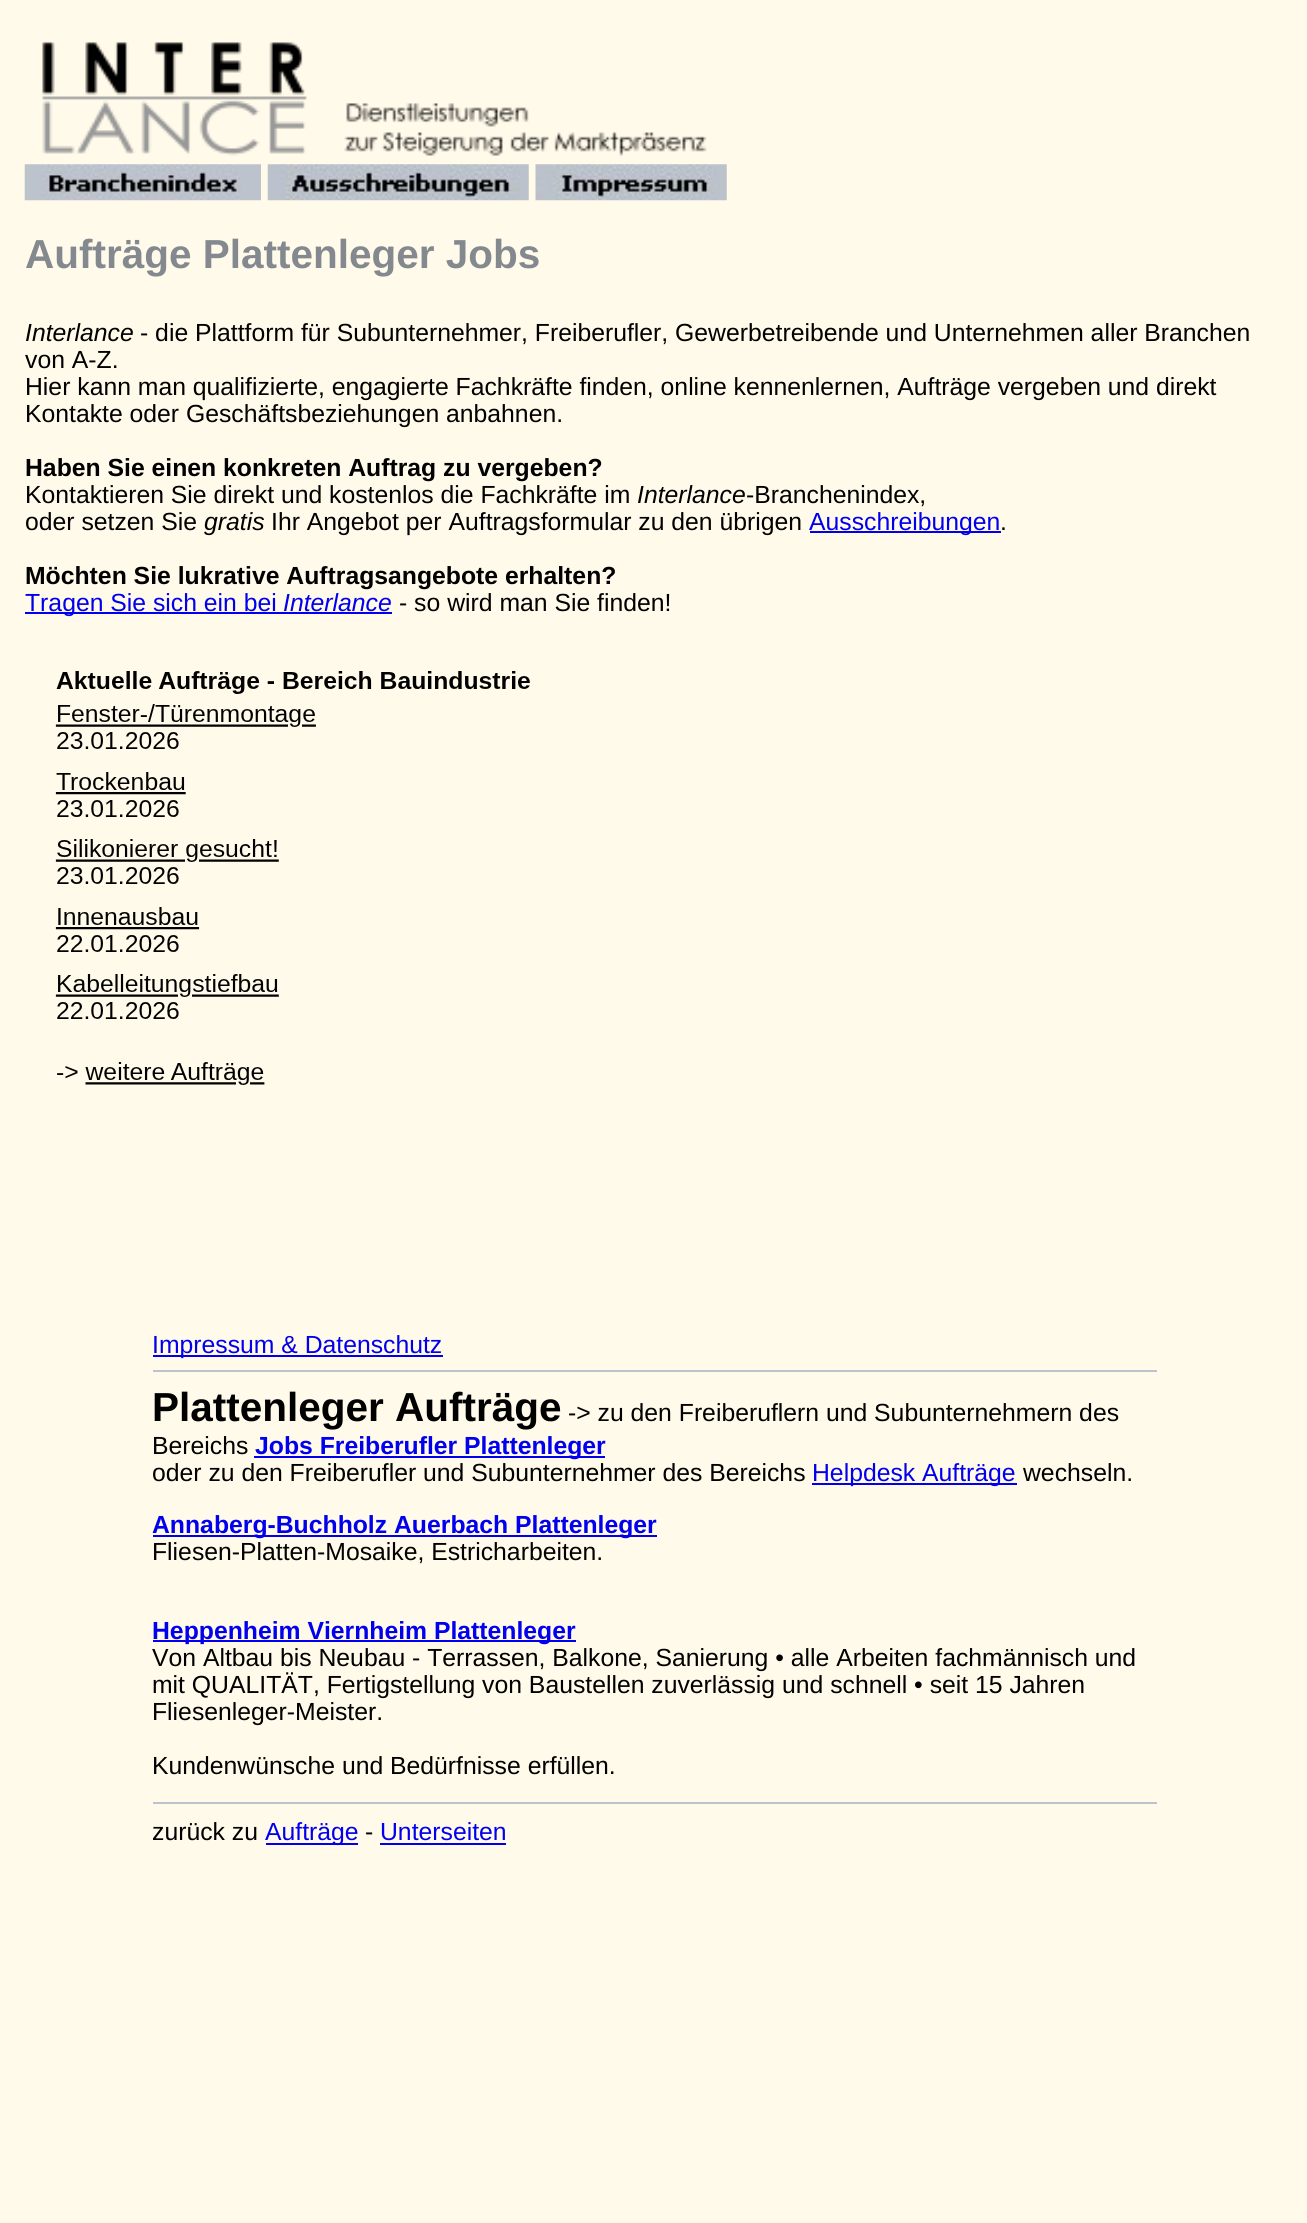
import math
import cairocffi as cairo

surface = cairo.ImageSurface(cairo.FORMAT_RGB24, 1307, 2223)
cr = cairo.Context(surface)
options = cairo.FontOptions()
options.set_hint_metrics(cairo.HINT_METRICS_OFF)
options.set_hint_style(cairo.HINT_STYLE_NONE)
cr.set_font_options(options)
cr.set_miter_limit(4)


def use_color(code):
    cr.set_source_rgb(*(v / 255 for v in bytes.fromhex(code[-6:])))


def picture(path, x, y, w, h):
    cr.save()
    cr.set_source_surface(cairo.ImageSurface.create_from_png(path), x, y)
    cr.rectangle(x, y, w, h)
    cr.fill()
    cr.restore()


use_color("#fffaea")
cr.paint()
picture("img1.png", 42, 42, 265, 114)
picture("img2.png", 344, 103, 363, 53)
picture("img3.png", 24, 164, 237, 37)
picture("img4.png", 267, 164, 262, 37)
picture("img5.png", 535, 164, 192, 37)
cr.select_font_face("Liberation Sans", cairo.FONT_SLANT_NORMAL, cairo.FONT_WEIGHT_BOLD)
cr.set_font_size(40.5)
use_color("#84898f")
cr.move_to(25, 268)
cr.show_text("Aufträge Plattenleger Jobs")
cr.select_font_face("Liberation Sans", cairo.FONT_SLANT_ITALIC)
cr.set_font_size(24.75)
use_color("#000000")
cr.move_to(25, 341)
cr.show_text("Interlance")
cr.select_font_face("Liberation Sans")
cr.move_to(140, 341)
cr.show_text("- die Plattform für Subunternehmer, Freiberufler, Gewerbetreibende und Unternehmen aller Branchen")
cr.move_to(25, 368)
cr.show_text("von A-Z.")
cr.move_to(25, 395)
cr.show_text("Hier kann man qualifizierte, engagierte Fachkräfte finden, online kennenlernen, Aufträge vergeben und direkt")
cr.move_to(25, 422)
cr.show_text("Kontakte oder Geschäftsbeziehungen anbahnen.")
cr.select_font_face("Liberation Sans", cairo.FONT_SLANT_NORMAL, cairo.FONT_WEIGHT_BOLD)
cr.move_to(25, 476)
cr.show_text("Haben Sie einen konkreten Auftrag zu vergeben?")
cr.select_font_face("Liberation Sans")
cr.move_to(25, 503)
cr.show_text("Kontaktieren Sie direkt und kostenlos die Fachkräfte im")
cr.select_font_face("Liberation Sans", cairo.FONT_SLANT_ITALIC)
cr.move_to(637, 503)
cr.show_text("Interlance")
cr.select_font_face("Liberation Sans")
cr.move_to(746, 503)
cr.show_text("-Branchenindex,")
cr.move_to(25, 530)
cr.show_text("oder setzen Sie")
cr.select_font_face("Liberation Sans", cairo.FONT_SLANT_ITALIC)
cr.move_to(204, 530)
cr.show_text("gratis")
cr.select_font_face("Liberation Sans")
cr.move_to(271, 530)
cr.show_text("Ihr Angebot per Auftragsformular zu den übrigen")
use_color("#0000ee")
cr.rectangle(810, 531, 191, 2)
cr.fill()
cr.move_to(809, 530)
cr.show_text("Ausschreibungen")
use_color("#000000")
cr.move_to(1000, 530)
cr.show_text(".")
cr.select_font_face("Liberation Sans", cairo.FONT_SLANT_NORMAL, cairo.FONT_WEIGHT_BOLD)
cr.move_to(25, 584)
cr.show_text("Möchten Sie lukrative Auftragsangebote erhalten?")
use_color("#0000ee")
cr.rectangle(25, 612, 367, 2)
cr.fill()
cr.select_font_face("Liberation Sans")
cr.move_to(25, 611)
cr.show_text("Tragen Sie sich ein bei")
cr.select_font_face("Liberation Sans", cairo.FONT_SLANT_ITALIC)
cr.move_to(283, 611)
cr.show_text("Interlance")
cr.select_font_face("Liberation Sans")
use_color("#000000")
cr.move_to(399, 611)
cr.show_text("- so wird man Sie finden!")
picture("img6.png", 55, 671, 475, 414)
use_color("#0000ee")
cr.rectangle(153, 1355, 290, 2)
cr.fill()
cr.move_to(152, 1353)
cr.show_text("Impressum & Datenschutz")
use_color("#bcc3cc")
cr.rectangle(153, 1370, 1004, 2)
cr.fill()
cr.select_font_face("Liberation Sans", cairo.FONT_SLANT_NORMAL, cairo.FONT_WEIGHT_BOLD)
cr.set_font_size(40.5)
use_color("#000000")
cr.move_to(152, 1421)
cr.show_text("Plattenleger Aufträge")
cr.select_font_face("Liberation Sans")
cr.set_font_size(24.75)
cr.move_to(568, 1421)
cr.show_text("-> zu den Freiberuflern und Subunternehmern des")
cr.move_to(152, 1454)
cr.show_text("Bereichs")
use_color("#0000ee")
cr.rectangle(254, 1456, 351, 2)
cr.fill()
cr.select_font_face("Liberation Sans", cairo.FONT_SLANT_NORMAL, cairo.FONT_WEIGHT_BOLD)
cr.move_to(255, 1454)
cr.show_text("Jobs Freiberufler Plattenleger")
cr.select_font_face("Liberation Sans")
use_color("#000000")
cr.move_to(152, 1481)
cr.show_text("oder zu den Freiberufler und Subunternehmer des Bereichs")
use_color("#0000ee")
cr.rectangle(812, 1483, 205, 2)
cr.fill()
cr.move_to(812, 1481)
cr.show_text("Helpdesk Aufträge")
use_color("#000000")
cr.move_to(1023, 1481)
cr.show_text("wechseln.")
use_color("#0000ee")
cr.rectangle(153, 1535, 504, 2)
cr.fill()
cr.select_font_face("Liberation Sans", cairo.FONT_SLANT_NORMAL, cairo.FONT_WEIGHT_BOLD)
cr.move_to(152, 1533)
cr.show_text("Annaberg-Buchholz Auerbach Plattenleger")
cr.select_font_face("Liberation Sans")
use_color("#000000")
cr.move_to(152, 1560)
cr.show_text("Fliesen-Platten-Mosaike, Estricharbeiten.")
use_color("#0000ee")
cr.rectangle(153, 1640, 423, 2)
cr.fill()
cr.select_font_face("Liberation Sans", cairo.FONT_SLANT_NORMAL, cairo.FONT_WEIGHT_BOLD)
cr.move_to(152, 1639)
cr.show_text("Heppenheim Viernheim Plattenleger")
cr.select_font_face("Liberation Sans")
use_color("#000000")
cr.move_to(152, 1666)
cr.show_text("Von Altbau bis Neubau - Terrassen, Balkone, Sanierung • alle Arbeiten fachmännisch und")
cr.move_to(152, 1693)
cr.show_text("mit QUALITÄT, Fertigstellung von Baustellen zuverlässig und schnell • seit 15 Jahren")
cr.move_to(152, 1720)
cr.show_text("Fliesenleger-Meister.")
cr.move_to(152, 1774)
cr.show_text("Kundenwünsche und Bedürfnisse erfüllen.")
use_color("#bcc3cc")
cr.rectangle(153, 1802, 1004, 2)
cr.fill()
use_color("#000000")
cr.move_to(152, 1840)
cr.show_text("zurück zu")
use_color("#0000ee")
cr.rectangle(266, 1843, 92, 2)
cr.fill()
cr.move_to(265, 1840)
cr.show_text("Aufträge")
use_color("#000000")
cr.move_to(365, 1840)
cr.show_text("-")
use_color("#0000ee")
cr.move_to(380, 1840)
cr.show_text("Unterseiten")
cr.rectangle(380, 1843, 126, 2)
cr.fill()
surface.write_to_png("result.png")
